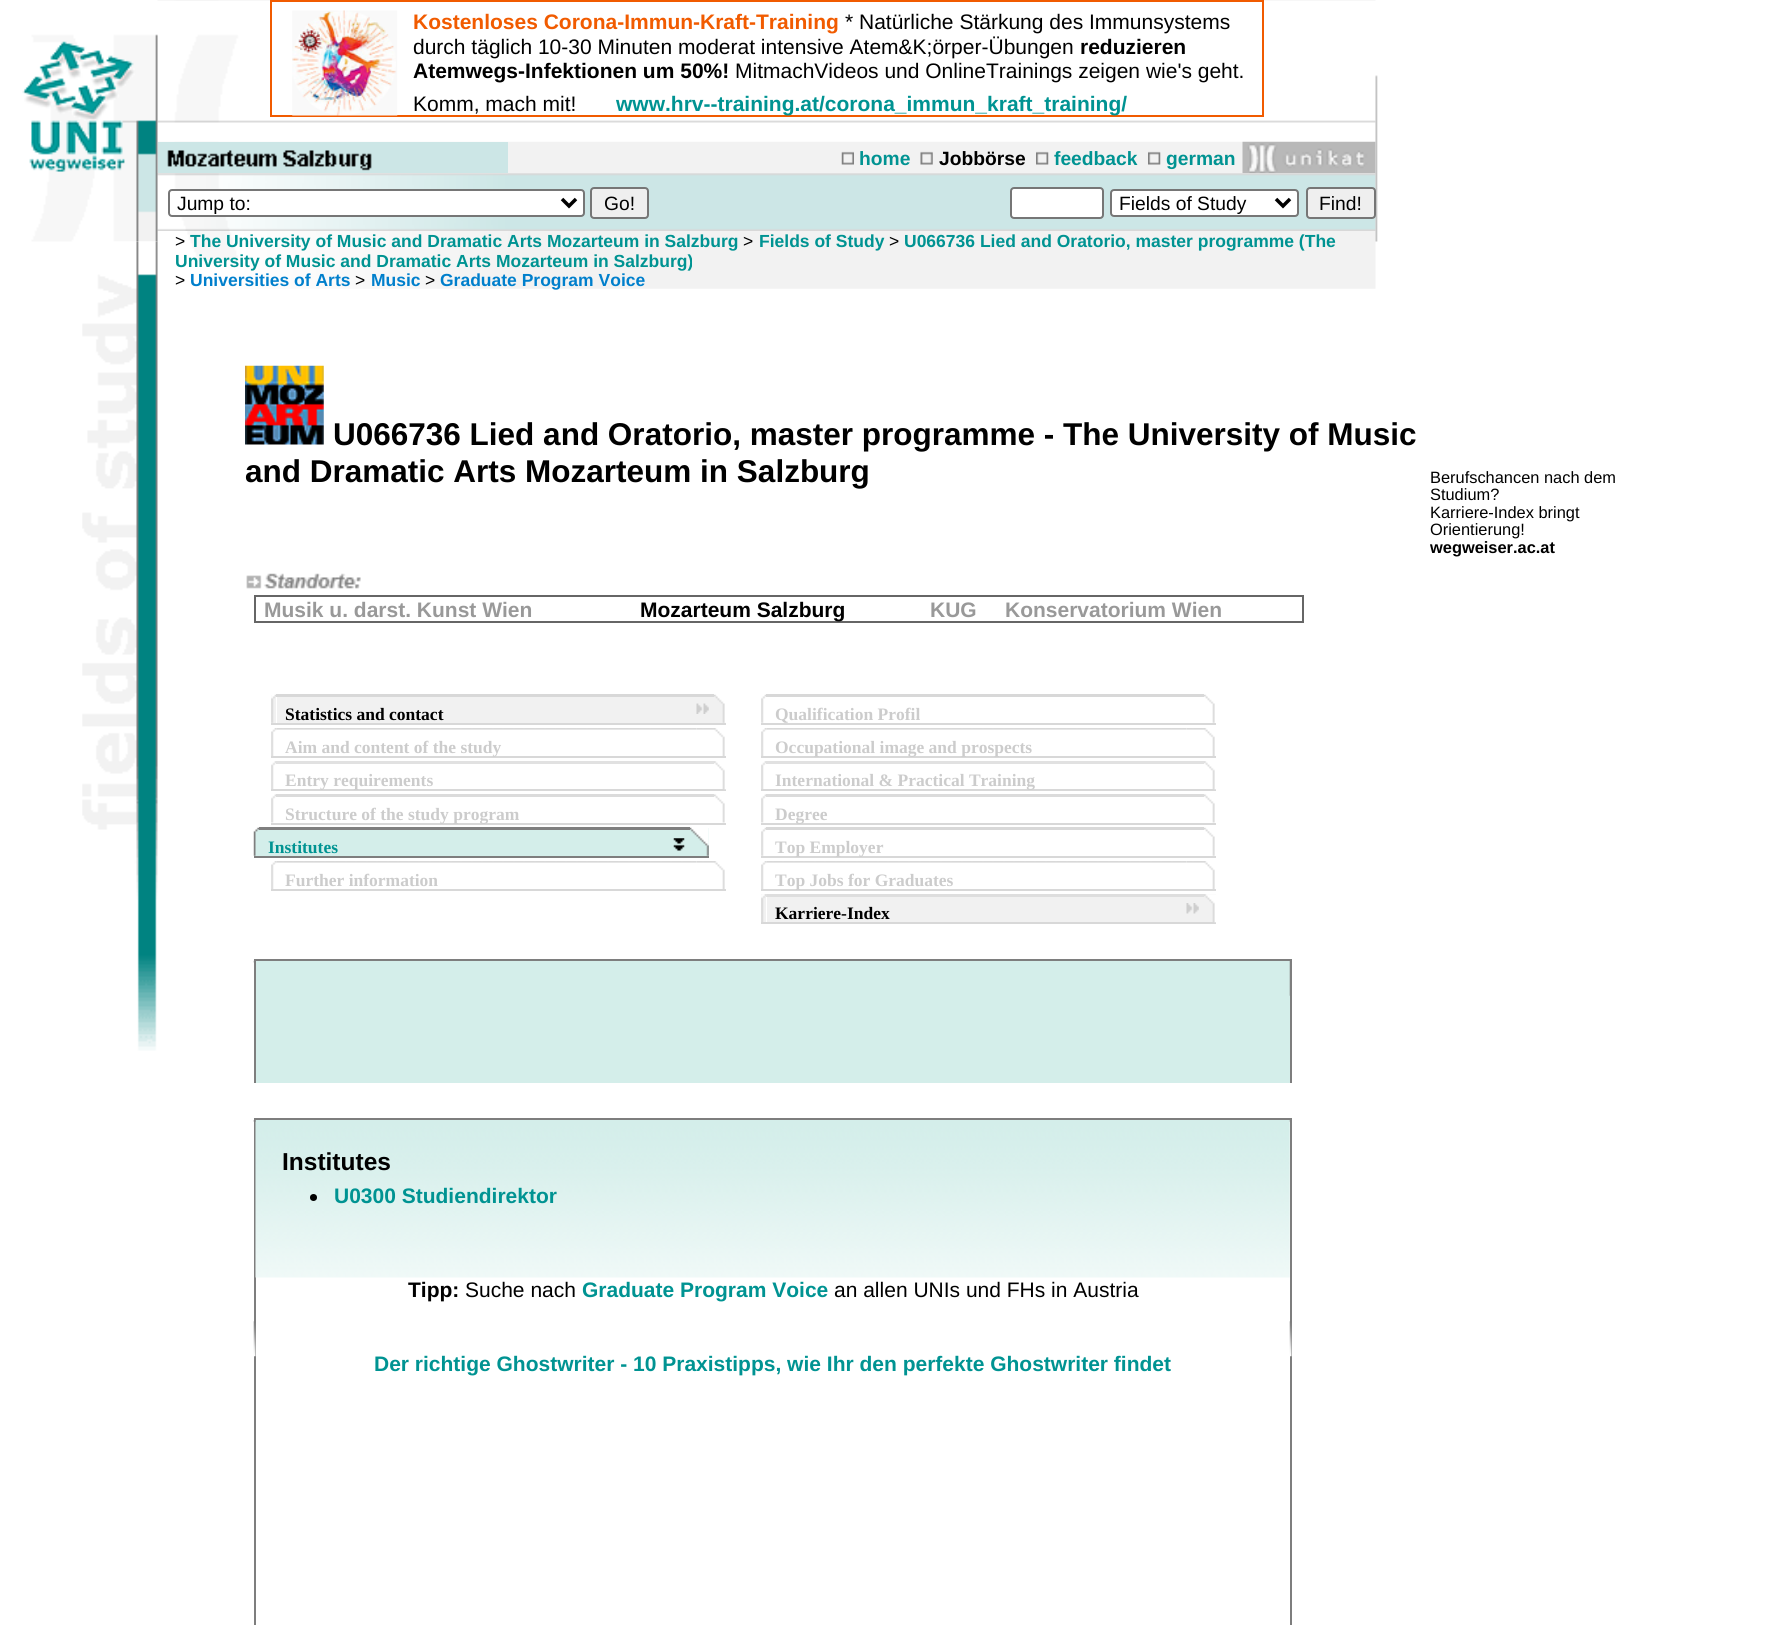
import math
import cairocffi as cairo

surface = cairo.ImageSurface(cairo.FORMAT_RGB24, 1786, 1625)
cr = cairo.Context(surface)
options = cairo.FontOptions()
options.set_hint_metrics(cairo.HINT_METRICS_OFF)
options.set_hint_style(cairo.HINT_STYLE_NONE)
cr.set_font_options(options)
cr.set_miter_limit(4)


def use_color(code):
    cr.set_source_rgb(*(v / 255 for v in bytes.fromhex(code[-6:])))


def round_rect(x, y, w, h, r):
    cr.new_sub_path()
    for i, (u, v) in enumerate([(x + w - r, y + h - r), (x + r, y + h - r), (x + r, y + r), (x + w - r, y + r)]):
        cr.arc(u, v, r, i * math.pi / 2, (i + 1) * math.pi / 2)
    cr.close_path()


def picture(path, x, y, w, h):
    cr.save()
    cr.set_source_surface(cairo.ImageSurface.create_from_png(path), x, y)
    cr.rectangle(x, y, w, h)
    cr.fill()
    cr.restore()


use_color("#ffffff")
cr.paint()
use_color("#e1e1e1")
cr.rectangle(766, 894, 1, 3)
cr.fill()
picture("img3.png", 157, 0, 1219, 123)
picture("img6.png", 157, 141, 1219, 33)
picture("img12.png", 157, 173, 1219, 58)
picture("img1.png", 22, 34, 136, 208)
picture("img2.png", 82, 241, 76, 810)
cr.rectangle(271, 1, 992, 115)
use_color("#f15b00")
cr.stroke()
picture("img4.png", 292, 10, 106, 106)
cr.select_font_face("Liberation Sans", cairo.FONT_SLANT_NORMAL, cairo.FONT_WEIGHT_BOLD)
cr.set_font_size(21)
cr.move_to(413, 29)
cr.show_text("Kostenloses Corona-Immun-Kraft-Training")
cr.select_font_face("Liberation Sans")
use_color("#000000")
cr.move_to(845, 29)
cr.show_text("* Natürliche Stärkung des Immunsystems")
cr.move_to(413, 54)
cr.show_text("durch täglich 10-30 Minuten moderat intensive Atem&K;örper-Übungen")
cr.select_font_face("Liberation Sans", cairo.FONT_SLANT_NORMAL, cairo.FONT_WEIGHT_BOLD)
cr.move_to(1080, 54)
cr.show_text("reduzieren")
cr.move_to(413, 78)
cr.show_text("Atemwegs-Infektionen um 50%!")
cr.select_font_face("Liberation Sans")
cr.move_to(735, 78)
cr.show_text("MitmachVideos und OnlineTrainings zeigen wie's geht.")
cr.move_to(413, 111)
cr.show_text("Komm, mach mit!")
cr.select_font_face("Liberation Sans", cairo.FONT_SLANT_NORMAL, cairo.FONT_WEIGHT_BOLD)
use_color("#009392")
cr.move_to(616, 111)
cr.show_text("www.hrv--training.at/corona_immun_kraft_training/")
picture("img13.png", 187, 231, 1189, 58)
picture("img5.png", 1375, 75, 3, 167)
use_color("#cce6e6")
cr.rectangle(158, 142, 350, 31)
cr.fill()
picture("img7.png", 167, 150, 205, 21)
picture("img8.png", 841, 151, 13, 14)
cr.set_font_size(19.25)
use_color("#009392")
cr.move_to(859, 165)
cr.show_text("home")
picture("img9.png", 920, 151, 13, 14)
use_color("#000000")
cr.move_to(939, 165)
cr.show_text("Jobbörse")
picture("img10.png", 1036, 151, 13, 14)
use_color("#009392")
cr.move_to(1054, 165)
cr.show_text("feedback")
picture("img11.png", 1148, 151, 13, 14)
cr.move_to(1166, 165)
cr.show_text("german")
use_color("#ffffff")
round_rect(169, 190, 415, 26, 3)
cr.fill_preserve()
use_color("#767676")
cr.stroke()
cr.new_path()
cr.move_to(562, 199)
cr.line_to(569, 206)
cr.line_to(576, 199)
use_color("#000000")
cr.set_line_width(3.5)
cr.stroke()
cr.select_font_face("Liberation Sans")
cr.move_to(177, 210)
cr.show_text("Jump to:")
use_color("#efefef")
round_rect(591, 188, 57, 30, 3)
cr.fill_preserve()
use_color("#767676")
cr.set_line_width(2)
cr.stroke()
use_color("#000000")
cr.move_to(604, 210)
cr.show_text("Go!")
use_color("#ffffff")
round_rect(1011, 188, 92, 30, 3)
cr.fill_preserve()
use_color("#767676")
cr.stroke()
use_color("#ffffff")
round_rect(1111, 190, 187, 26, 3)
cr.fill_preserve()
use_color("#767676")
cr.stroke()
cr.new_path()
cr.move_to(1276, 199)
cr.line_to(1283, 206)
cr.line_to(1290, 199)
use_color("#000000")
cr.set_line_width(3.5)
cr.stroke()
cr.move_to(1119, 210)
cr.show_text("Fields of Study")
use_color("#efefef")
round_rect(1307, 188, 68, 30, 3)
cr.fill_preserve()
use_color("#767676")
cr.set_line_width(2)
cr.stroke()
use_color("#000000")
cr.move_to(1319, 210)
cr.show_text("Find!")
cr.set_font_size(17.5)
cr.move_to(175, 247)
cr.show_text(">")
cr.select_font_face("Liberation Sans", cairo.FONT_SLANT_NORMAL, cairo.FONT_WEIGHT_BOLD)
use_color("#009392")
cr.move_to(190, 247)
cr.show_text("The University of Music and Dramatic Arts Mozarteum in Salzburg")
cr.select_font_face("Liberation Sans")
use_color("#000000")
cr.move_to(743, 247)
cr.show_text(">")
cr.select_font_face("Liberation Sans", cairo.FONT_SLANT_NORMAL, cairo.FONT_WEIGHT_BOLD)
use_color("#009392")
cr.move_to(759, 247)
cr.show_text("Fields of Study")
cr.select_font_face("Liberation Sans")
use_color("#000000")
cr.move_to(889, 247)
cr.show_text(">")
cr.select_font_face("Liberation Sans", cairo.FONT_SLANT_NORMAL, cairo.FONT_WEIGHT_BOLD)
use_color("#009392")
cr.move_to(904, 247)
cr.show_text("U066736 Lied and Oratorio, master programme (The")
cr.move_to(175, 267)
cr.show_text("University of Music and Dramatic Arts Mozarteum in Salzburg)")
cr.select_font_face("Liberation Sans")
use_color("#000000")
cr.move_to(175, 286)
cr.show_text(">")
cr.select_font_face("Liberation Sans", cairo.FONT_SLANT_NORMAL, cairo.FONT_WEIGHT_BOLD)
use_color("#007fcc")
cr.move_to(190, 286)
cr.show_text("Universities of Arts")
cr.select_font_face("Liberation Sans")
use_color("#000000")
cr.move_to(355, 286)
cr.show_text(">")
cr.select_font_face("Liberation Sans", cairo.FONT_SLANT_NORMAL, cairo.FONT_WEIGHT_BOLD)
use_color("#007fcc")
cr.move_to(371, 286)
cr.show_text("Music")
cr.select_font_face("Liberation Sans")
use_color("#000000")
cr.move_to(425, 286)
cr.show_text(">")
cr.select_font_face("Liberation Sans", cairo.FONT_SLANT_NORMAL, cairo.FONT_WEIGHT_BOLD)
use_color("#007fcc")
cr.move_to(440, 286)
cr.show_text("Graduate Program Voice")
picture("img14.png", 245, 365, 79, 80)
cr.set_font_size(31.5)
use_color("#000000")
cr.move_to(333, 445)
cr.show_text("U066736 Lied and Oratorio, master programme - The University of Music")
cr.move_to(245, 482)
cr.show_text("and Dramatic Arts Mozarteum in Salzburg")
picture("img15.png", 246, 573, 115, 16)
cr.rectangle(255, 596, 1048, 26)
use_color("#666666")
cr.stroke()
cr.set_font_size(21)
use_color("#999999")
cr.move_to(264, 617)
cr.show_text("Musik u. darst. Kunst Wien")
use_color("#000000")
cr.move_to(640, 617)
cr.show_text("Mozarteum Salzburg")
use_color("#999999")
cr.move_to(930, 617)
cr.show_text("KUG")
cr.move_to(1005, 617)
cr.show_text("Konservatorium Wien")
use_color("#f1f1f1")
cr.rectangle(271, 695, 5, 28)
cr.fill()
picture("img16.png", 271, 694, 5, 29)
cr.rectangle(277, 697, 437, 26)
cr.fill()
use_color("#d8d8d8")
cr.rectangle(276, 694, 438, 3)
cr.fill()
cr.select_font_face("Liberation Serif", cairo.FONT_SLANT_NORMAL, cairo.FONT_WEIGHT_BOLD)
cr.set_font_size(17.5)
use_color("#000000")
cr.move_to(285, 720)
cr.show_text("Statistics and contact")
picture("img17.png", 696, 703, 13, 11)
use_color("#f1f1f1")
cr.rectangle(714, 696, 12, 27)
cr.fill()
picture("img18.png", 714, 694, 12, 29)
use_color("#d8d8d8")
cr.rectangle(271, 723, 455, 2)
cr.fill()
picture("img20.png", 276, 728, 421, 2)
picture("img19.png", 271, 728, 6, 28)
cr.rectangle(271, 756, 455, 2)
cr.fill()
use_color("#cccccc")
cr.move_to(285, 753)
cr.show_text("Aim and content of the study")
picture("img21.png", 696, 728, 18, 2)
picture("img22.png", 714, 728, 11, 28)
picture("img23.png", 271, 761, 5, 28)
use_color("#e1e1e1")
cr.rectangle(276, 761, 438, 3)
cr.fill()
use_color("#d8d8d8")
cr.rectangle(271, 789, 455, 2)
cr.fill()
use_color("#cccccc")
cr.move_to(285, 786)
cr.show_text("Entry requirements")
picture("img24.png", 714, 761, 12, 29)
picture("img25.png", 271, 794, 5, 29)
use_color("#dbdbdb")
cr.rectangle(276, 794, 438, 3)
cr.fill()
use_color("#d8d8d8")
cr.rectangle(271, 823, 455, 2)
cr.fill()
use_color("#cccccc")
cr.move_to(285, 820)
cr.show_text("Structure of the study program")
picture("img26.png", 714, 794, 11, 29)
use_color("#d4eeea")
cr.rectangle(254, 828, 5, 28)
cr.fill()
picture("img27.png", 253, 827, 6, 29)
cr.rectangle(259, 830, 431, 26)
cr.fill()
use_color("#7f7f7f")
cr.rectangle(259, 827, 431, 3)
cr.fill()
use_color("#009392")
cr.move_to(268, 853)
cr.show_text("Institutes")
picture("img28.png", 673, 838, 12, 13)
use_color("#d4eeea")
cr.rectangle(690, 828, 19, 28)
cr.fill()
picture("img29.png", 690, 827, 19, 29)
use_color("#7e7e7e")
cr.rectangle(254, 856, 455, 2)
cr.fill()
picture("img30.png", 276, 861, 421, 2)
picture("img19.png", 271, 861, 6, 28)
use_color("#cccccc")
cr.move_to(285, 886)
cr.show_text("Further information")
picture("img21.png", 696, 861, 18, 2)
picture("img22.png", 714, 861, 11, 28)
use_color("#d8d8d8")
cr.rectangle(271, 889, 455, 2)
cr.fill()
picture("img31.png", 761, 694, 5, 29)
cr.rectangle(766, 694, 438, 3)
cr.fill()
use_color("#cccccc")
cr.move_to(775, 720)
cr.show_text("Qualification Profil")
picture("img32.png", 1204, 694, 11, 29)
use_color("#d8d8d8")
cr.rectangle(761, 723, 455, 2)
cr.fill()
picture("img33.png", 766, 728, 421, 2)
picture("img19.png", 761, 728, 6, 28)
cr.rectangle(761, 756, 455, 2)
cr.fill()
use_color("#cccccc")
cr.move_to(775, 753)
cr.show_text("Occupational image and prospects")
picture("img21.png", 1186, 728, 18, 2)
picture("img22.png", 1204, 728, 11, 28)
picture("img23.png", 761, 761, 5, 28)
use_color("#e1e1e1")
cr.rectangle(766, 761, 438, 3)
cr.fill()
use_color("#d8d8d8")
cr.rectangle(761, 789, 455, 2)
cr.fill()
use_color("#cccccc")
cr.move_to(775, 786)
cr.show_text("International & Practical Training")
picture("img24.png", 1204, 761, 12, 29)
picture("img25.png", 761, 794, 5, 29)
use_color("#dbdbdb")
cr.rectangle(766, 794, 438, 3)
cr.fill()
use_color("#d8d8d8")
cr.rectangle(761, 823, 455, 2)
cr.fill()
use_color("#cccccc")
cr.move_to(775, 820)
cr.show_text("Degree")
picture("img26.png", 1204, 794, 11, 29)
picture("img31.png", 761, 827, 5, 29)
use_color("#d8d8d8")
cr.rectangle(766, 827, 438, 3)
cr.fill()
cr.rectangle(761, 856, 455, 2)
cr.fill()
use_color("#cccccc")
cr.move_to(775, 853)
cr.show_text("Top Employer")
picture("img32.png", 1204, 827, 11, 29)
picture("img30.png", 766, 861, 421, 2)
picture("img19.png", 761, 861, 6, 28)
use_color("#d8d8d8")
cr.rectangle(761, 889, 455, 2)
cr.fill()
use_color("#cccccc")
cr.move_to(775, 886)
cr.show_text("Top Jobs for Graduates")
picture("img21.png", 1186, 861, 18, 2)
picture("img22.png", 1204, 861, 11, 28)
use_color("#f1f1f1")
cr.rectangle(761, 894, 5, 28)
cr.fill()
picture("img34.png", 761, 894, 5, 28)
cr.rectangle(767, 897, 437, 25)
cr.fill()
use_color("#dedede")
cr.rectangle(767, 894, 437, 3)
cr.fill()
use_color("#000000")
cr.move_to(775, 919)
cr.show_text("Karriere-Index")
picture("img35.png", 1186, 903, 13, 11)
use_color("#f1f1f1")
cr.rectangle(1204, 894, 12, 28)
cr.fill()
use_color("#d8d8d8")
cr.rectangle(761, 922, 455, 2)
cr.fill()
picture("img36.png", 1204, 894, 12, 29)
use_color("#7e7e7e")
cr.rectangle(254, 959, 1038, 2)
cr.fill()
cr.rectangle(254, 961, 2, 122)
cr.fill()
picture("img37.png", 253, 960, 1, 3)
use_color("#d4eeea")
cr.rectangle(256, 961, 1034, 122)
cr.fill()
use_color("#7e7e7e")
cr.rectangle(1290, 961, 2, 122)
cr.fill()
picture("img38.png", 1289, 961, 1, 35)
cr.rectangle(254, 1118, 1038, 2)
cr.fill()
cr.rectangle(254, 1120, 2, 505)
cr.fill()
picture("img40.png", 255, 1120, 1035, 158)
picture("img39.png", 253, 1120, 3, 2)
cr.select_font_face("Liberation Sans", cairo.FONT_SLANT_NORMAL, cairo.FONT_WEIGHT_BOLD)
cr.set_font_size(24.5)
use_color("#000000")
cr.move_to(282, 1170)
cr.show_text("Institutes")
cr.new_path()
cr.arc(313.5, 1197.5, 3.5, 0, 2 * math.pi)
cr.fill()
cr.set_font_size(21)
use_color("#009392")
cr.move_to(334, 1203)
cr.show_text("U0300 Studiendirektor")
use_color("#7e7e7e")
cr.rectangle(1290, 1120, 2, 505)
cr.fill()
picture("img41.png", 1289, 1120, 1, 2)
picture("img42.png", 253, 1321, 3, 36)
use_color("#000000")
cr.move_to(408, 1297)
cr.show_text("Tipp:")
cr.select_font_face("Liberation Sans")
cr.move_to(465, 1297)
cr.show_text("Suche nach")
cr.select_font_face("Liberation Sans", cairo.FONT_SLANT_NORMAL, cairo.FONT_WEIGHT_BOLD)
use_color("#009392")
cr.move_to(582, 1297)
cr.show_text("Graduate Program Voice")
cr.select_font_face("Liberation Sans")
use_color("#000000")
cr.move_to(834, 1297)
cr.show_text("an allen UNIs und FHs in Austria")
cr.select_font_face("Liberation Sans", cairo.FONT_SLANT_NORMAL, cairo.FONT_WEIGHT_BOLD)
use_color("#009392")
cr.move_to(374, 1371)
cr.show_text("Der richtige Ghostwriter - 10 Praxistipps, wie Ihr den perfekte Ghostwriter findet")
picture("img42.png", 1289, 1321, 3, 36)
cr.select_font_face("Liberation Sans")
cr.set_font_size(16.4)
use_color("#000000")
cr.move_to(1430, 483)
cr.show_text("Berufschancen nach dem")
cr.move_to(1430, 500)
cr.show_text("Studium?")
cr.move_to(1430, 518)
cr.show_text("Karriere-Index bringt")
cr.move_to(1430, 535)
cr.show_text("Orientierung!")
cr.select_font_face("Liberation Sans", cairo.FONT_SLANT_NORMAL, cairo.FONT_WEIGHT_BOLD)
cr.move_to(1430, 553)
cr.show_text("wegweiser.ac.at")
surface.write_to_png("result.png")
